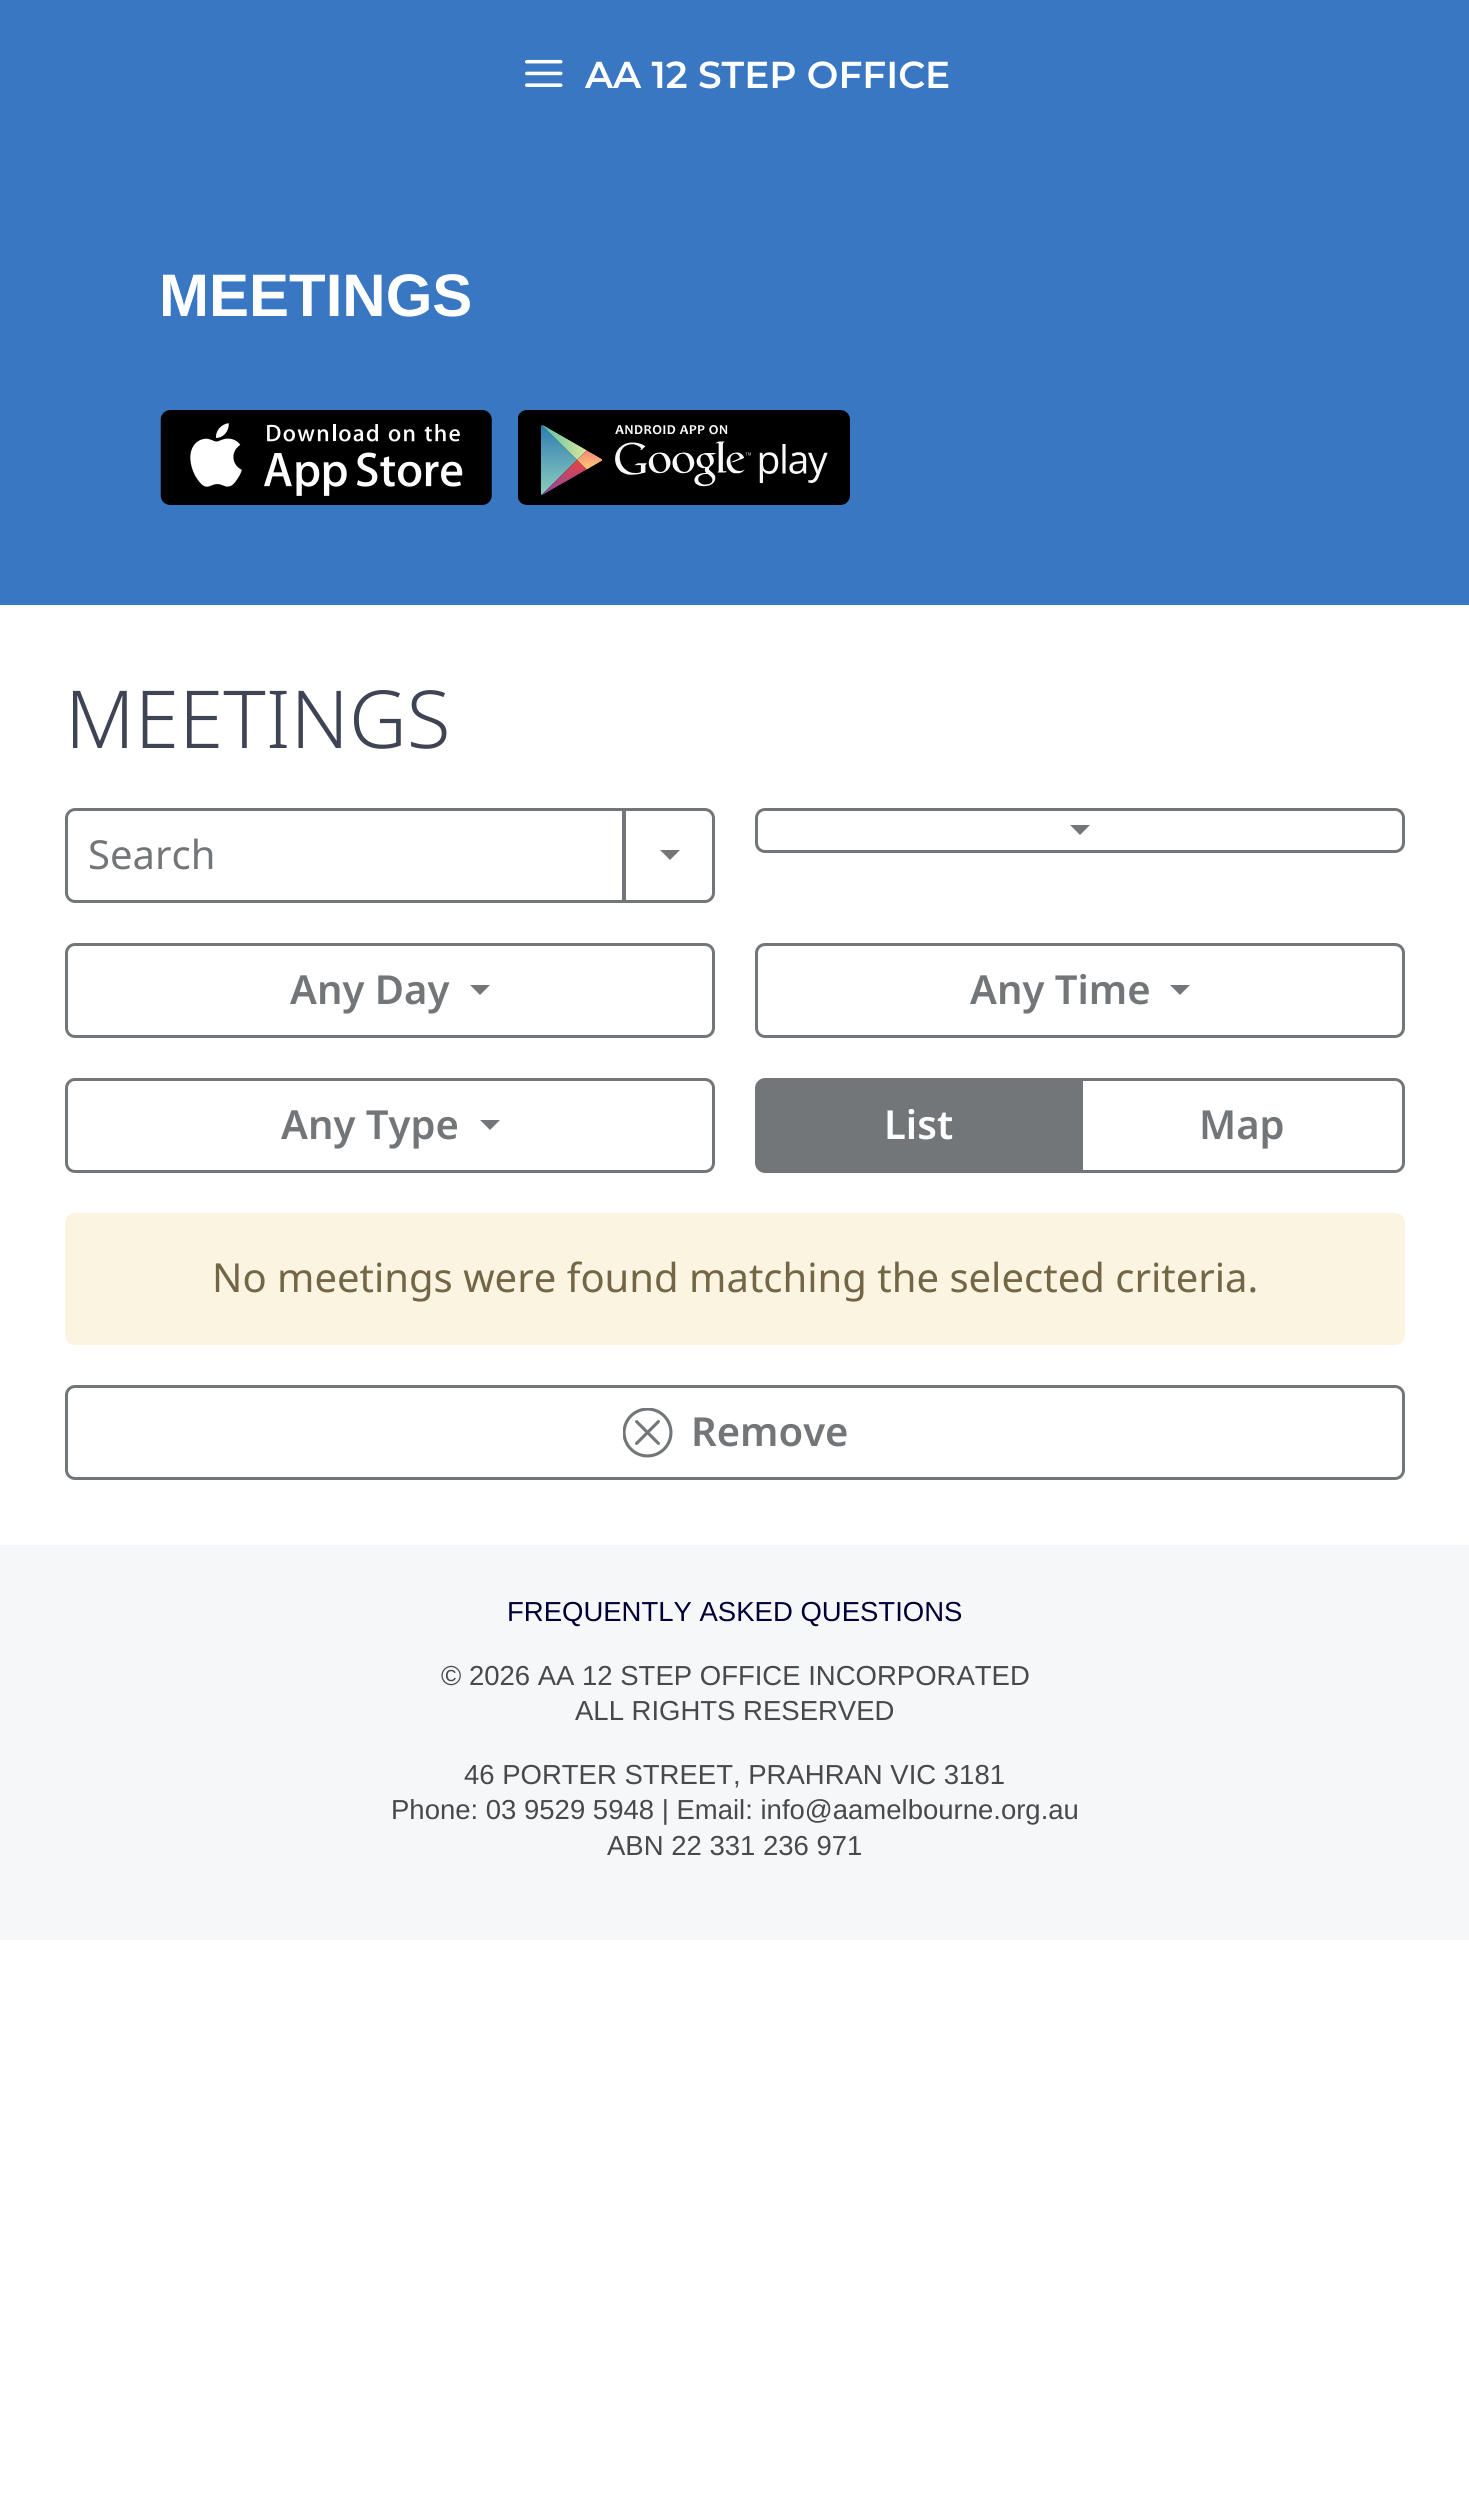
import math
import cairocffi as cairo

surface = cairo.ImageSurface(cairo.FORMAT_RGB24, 1469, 2516)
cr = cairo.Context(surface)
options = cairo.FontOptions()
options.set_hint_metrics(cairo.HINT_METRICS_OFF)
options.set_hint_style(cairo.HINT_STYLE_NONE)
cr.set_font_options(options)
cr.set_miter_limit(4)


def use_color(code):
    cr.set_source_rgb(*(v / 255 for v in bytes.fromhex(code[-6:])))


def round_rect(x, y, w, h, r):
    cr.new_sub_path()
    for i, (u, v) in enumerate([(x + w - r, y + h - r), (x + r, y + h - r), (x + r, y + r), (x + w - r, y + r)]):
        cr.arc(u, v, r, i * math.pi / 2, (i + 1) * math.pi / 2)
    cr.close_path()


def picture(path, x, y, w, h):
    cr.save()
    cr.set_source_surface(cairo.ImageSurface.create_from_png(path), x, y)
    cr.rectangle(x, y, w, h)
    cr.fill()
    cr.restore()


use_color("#ffffff")
cr.paint()
use_color("#3977c3")
cr.rectangle(0, 0, 1469, 605)
cr.fill()
picture("img1.png", 525, 59, 38, 28)
cr.select_font_face("Montserrat Thin")
cr.set_font_size(37.5)
use_color("#ffffff")
cr.move_to(585, 88)
cr.show_text("AA 12 STEP OFFICE")
cr.select_font_face("Liberation Sans", cairo.FONT_SLANT_NORMAL, cairo.FONT_WEIGHT_BOLD)
cr.set_font_size(60)
cr.move_to(159, 316)
cr.show_text("MEETINGS")
picture("img2.png", 160, 410, 332, 95)
picture("img3.png", 518, 410, 332, 95)
cr.select_font_face("Noto Sans Light")
cr.set_font_size(80)
use_color("#3f4454")
cr.move_to(65, 748)
cr.show_text("MEETINGS")
cr.new_path()
cr.move_to(75, 809.5)
cr.line_to(623.5, 809.5)
cr.line_to(623.5, 901.5)
cr.line_to(75, 901.5)
cr.curve_to(70.5, 901.5, 66.5, 897.5, 66.5, 893)
cr.line_to(66.5, 818)
cr.curve_to(66.5, 813.5, 70.5, 809.5, 75, 809.5)
cr.close_path()
use_color("#737678")
cr.set_line_width(3)
cr.stroke()
cr.select_font_face("Noto Sans")
cr.set_font_size(40)
cr.move_to(88, 869)
cr.show_text("Search")
cr.new_path()
cr.move_to(624.5, 809.5)
cr.line_to(705, 809.5)
cr.curve_to(709.5, 809.5, 713.5, 813.5, 713.5, 818)
cr.line_to(713.5, 893)
cr.curve_to(713.5, 897.5, 709.5, 901.5, 705, 901.5)
cr.line_to(624.5, 901.5)
cr.close_path()
cr.stroke()
cr.new_path()
cr.move_to(660, 850)
cr.line_to(680, 850)
cr.line_to(670, 860)
cr.close_path()
cr.fill()
round_rect(756.5, 809.5, 647, 42, 8.5)
cr.stroke()
cr.new_path()
cr.move_to(1070, 825)
cr.line_to(1090, 825)
cr.line_to(1080, 835)
cr.close_path()
cr.fill()
round_rect(66.5, 944.5, 647, 92, 8.5)
cr.stroke()
cr.select_font_face("Noto Sans SemiBold")
cr.move_to(290, 1004)
cr.show_text("Any Day")
cr.new_path()
cr.move_to(470, 985)
cr.line_to(490, 985)
cr.line_to(480, 995)
cr.close_path()
cr.fill()
round_rect(756.5, 944.5, 647, 92, 8.5)
cr.stroke()
cr.move_to(970, 1004)
cr.show_text("Any Time")
cr.new_path()
cr.move_to(1170, 985)
cr.line_to(1190, 985)
cr.line_to(1180, 995)
cr.close_path()
cr.fill()
round_rect(66.5, 1079.5, 647, 92, 8.5)
cr.stroke()
cr.move_to(281, 1139)
cr.show_text("Any Type")
cr.new_path()
cr.move_to(480, 1120)
cr.line_to(500, 1120)
cr.line_to(490, 1130)
cr.close_path()
cr.fill()
cr.new_path()
cr.move_to(765, 1079.5)
cr.line_to(1081.5, 1079.5)
cr.line_to(1081.5, 1171.5)
cr.line_to(765, 1171.5)
cr.curve_to(760.5, 1171.5, 756.5, 1167.5, 756.5, 1163)
cr.line_to(756.5, 1088)
cr.curve_to(756.5, 1083.5, 760.5, 1079.5, 765, 1079.5)
cr.close_path()
cr.fill_preserve()
cr.stroke()
use_color("#ffffff")
cr.move_to(884, 1139)
cr.show_text("List")
cr.new_path()
cr.move_to(1081.5, 1079.5)
cr.line_to(1395, 1079.5)
cr.curve_to(1399.5, 1079.5, 1403.5, 1083.5, 1403.5, 1088)
cr.line_to(1403.5, 1163)
cr.curve_to(1403.5, 1167.5, 1399.5, 1171.5, 1395, 1171.5)
cr.line_to(1081.5, 1171.5)
cr.close_path()
use_color("#737678")
cr.stroke()
cr.move_to(1199, 1139)
cr.show_text("Map")
use_color("#faf4e0")
round_rect(65, 1213, 1340, 132, 10)
cr.fill()
cr.select_font_face("Noto Sans")
use_color("#736646")
cr.move_to(212, 1292)
cr.show_text("No meetings were found matching the selected criteria.")
round_rect(66.5, 1386.5, 1337, 92, 8.5)
use_color("#737678")
cr.stroke()
picture("img4.png", 623, 1408, 50, 50)
cr.select_font_face("Noto Sans SemiBold")
cr.move_to(691, 1446)
cr.show_text("Remove")
use_color("#f6f7f9")
cr.rectangle(0, 1545, 1469, 395)
cr.fill()
cr.select_font_face("Liberation Sans")
cr.set_font_size(27.5)
use_color("#000035")
cr.move_to(507, 1621)
cr.show_text("FREQUENTLY ASKED QUESTIONS")
use_color("#494949")
cr.move_to(441, 1685)
cr.show_text("© 2026 AA 12 STEP OFFICE INCORPORATED")
cr.move_to(575, 1720)
cr.show_text("ALL RIGHTS RESERVED")
cr.move_to(464, 1784)
cr.show_text("46 PORTER STREET, PRAHRAN VIC 3181")
cr.move_to(391, 1819)
cr.show_text("Phone: 03 9529 5948 | Email: info@aamelbourne.org.au")
cr.move_to(607, 1855)
cr.show_text("ABN 22 331 236 971")
surface.write_to_png("result.png")
